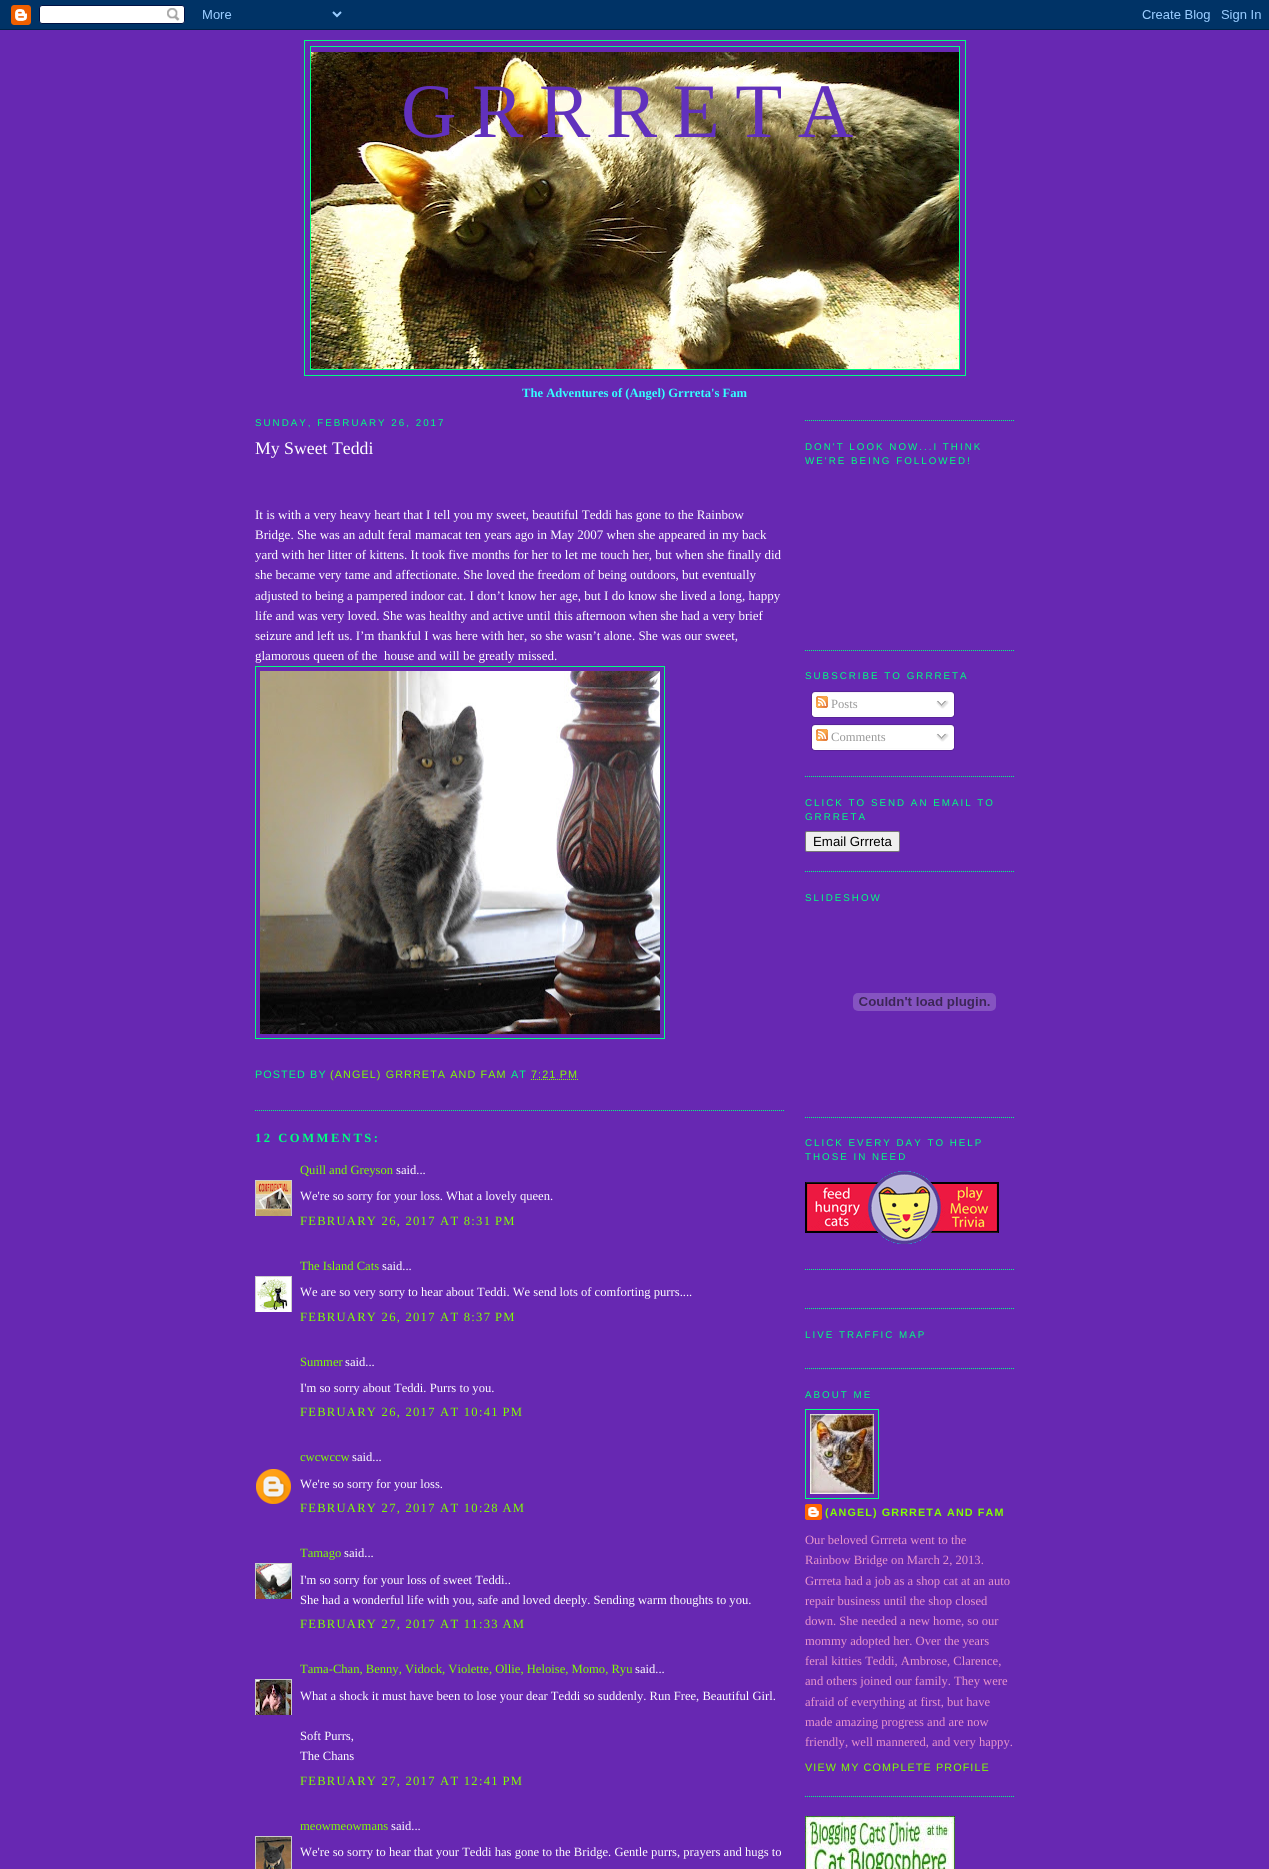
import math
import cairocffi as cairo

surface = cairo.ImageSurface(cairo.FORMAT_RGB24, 1269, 1869)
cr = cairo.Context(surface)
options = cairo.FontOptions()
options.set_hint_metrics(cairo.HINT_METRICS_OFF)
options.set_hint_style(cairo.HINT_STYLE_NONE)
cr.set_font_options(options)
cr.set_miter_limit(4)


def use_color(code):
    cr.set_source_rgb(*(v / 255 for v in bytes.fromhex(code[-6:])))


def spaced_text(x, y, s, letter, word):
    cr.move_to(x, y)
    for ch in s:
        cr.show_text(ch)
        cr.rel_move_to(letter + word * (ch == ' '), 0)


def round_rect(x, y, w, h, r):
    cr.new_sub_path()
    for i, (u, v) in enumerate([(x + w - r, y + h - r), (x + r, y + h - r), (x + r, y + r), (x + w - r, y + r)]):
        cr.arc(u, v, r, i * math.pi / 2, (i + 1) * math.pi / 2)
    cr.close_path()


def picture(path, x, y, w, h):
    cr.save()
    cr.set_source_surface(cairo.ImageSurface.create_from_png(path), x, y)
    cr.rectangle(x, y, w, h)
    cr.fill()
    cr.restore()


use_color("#6728b2")
cr.paint()
picture("img1.png", 0, 0, 1269, 30)
cr.rectangle(304.5, 40.5, 661, 335)
use_color("#00ff80")
cr.set_line_width(1)
cr.stroke()
cr.rectangle(310.5, 46.5, 649, 323)
cr.stroke()
picture("img2.png", 311, 52, 648, 317)
cr.select_font_face("Liberation Serif")
cr.set_font_size(77)
use_color("#6131bd")
spaced_text(401, 137, "GRRRETA", 15.5, 0)
cr.select_font_face("Liberation Serif", cairo.FONT_SLANT_NORMAL, cairo.FONT_WEIGHT_BOLD)
cr.set_font_size(12.6)
use_color("#33ffff")
cr.move_to(522, 397)
cr.show_text("The Adventures of (Angel) Grrreta's Fam")
cr.select_font_face("Liberation Sans")
cr.set_font_size(9.8)
use_color("#00ff80")
spaced_text(255, 426, "SUNDAY, FEBRUARY 26, 2017", 2, 0)
cr.new_path()
cr.move_to(255, 1110.5)
cr.line_to(785, 1110.5)
cr.set_dash([1, 1])
cr.stroke()
cr.select_font_face("Liberation Serif")
cr.set_font_size(17.75)
use_color("#ffffff")
cr.move_to(255, 454)
cr.show_text("My Sweet Teddi")
cr.set_font_size(13)
cr.move_to(255, 519)
cr.show_text("It is with a very heavy heart that I tell you my sweet, beautiful Teddi has gone to the Rainbow")
cr.move_to(255, 539)
cr.show_text("Bridge. She was an adult feral mamacat ten years ago in May 2007 when she appeared in my back")
cr.save()
cr.rectangle(255, 401, 530, 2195)
cr.clip()
cr.move_to(255, 559)
cr.show_text("yard with her litter of kittens. It took five months for her to let me touch her, but when she finally did")
cr.restore()
cr.move_to(255, 579)
cr.show_text("she became very tame and affectionate. She loved the freedom of being outdoors, but eventually")
cr.move_to(255, 600)
cr.show_text("adjusted to being a pampered indoor cat. I don’t know her age, but I do know she lived a long, happy")
cr.move_to(255, 620)
cr.show_text("life and was very loved. She was healthy and active until this afternoon when she had a very brief")
cr.move_to(255, 640)
cr.show_text("seizure and left us. I’m thankful I was here with her, so she wasn’t alone. She was our sweet,")
cr.move_to(255, 660)
cr.show_text("glamorous queen of the  house and will be greatly missed.")
cr.rectangle(255.5, 666.5, 409, 372)
use_color("#00ff80")
cr.set_dash([])
cr.stroke()
picture("img3.png", 260, 671, 400, 363)
cr.select_font_face("Liberation Sans")
cr.set_font_size(10.8)
spaced_text(255, 1078, "POSTED BY", 1.1, 0)
use_color("#80ff00")
spaced_text(330, 1078, "(ANGEL) GRRRETA AND FAM", 1.1, 0)
use_color("#00ff80")
spaced_text(511, 1078, "AT", 1.1, 0)
use_color("#80ff00")
spaced_text(531, 1078, "7:21 PM", 1.1, 0)
cr.new_path()
cr.move_to(531, 1079.5)
cr.line_to(578, 1079.5)
cr.set_dash([1, 1])
cr.stroke()
cr.select_font_face("Liberation Serif", cairo.FONT_SLANT_NORMAL, cairo.FONT_WEIGHT_BOLD)
cr.set_font_size(12.6)
use_color("#00ff80")
spaced_text(255, 1142, "12 COMMENTS:", 2.5, 0)
cr.select_font_face("Liberation Serif")
use_color("#80ff00")
cr.move_to(300, 1174)
cr.show_text("Quill and Greyson")
use_color("#ffffff")
cr.move_to(396, 1174)
cr.show_text("said...")
cr.save()
cr.rectangle(255, 1180, 37, 36)
cr.clip()
cr.rectangle(255.5, 1180.5, 36, 36)
use_color("#cccccc")
cr.set_dash([])
cr.stroke()
cr.restore()
picture("img4.png", 256, 1181, 35, 35)
cr.move_to(300, 1200)
cr.show_text("We're so sorry for your loss. What a lovely queen.")
use_color("#80ff00")
spaced_text(300, 1225, "FEBRUARY 26, 2017 AT 8:31 PM", 1.25, 0)
cr.move_to(300, 1270)
cr.show_text("The Island Cats")
use_color("#ffffff")
cr.move_to(382, 1270)
cr.show_text("said...")
cr.save()
cr.rectangle(255, 1276, 37, 36)
cr.clip()
cr.rectangle(255.5, 1276.5, 36, 36)
use_color("#cccccc")
cr.set_dash([])
cr.stroke()
cr.restore()
picture("img5.png", 256, 1277, 35, 35)
cr.move_to(300, 1296)
cr.show_text("We are so very sorry to hear about Teddi. We send lots of comforting purrs....")
use_color("#80ff00")
spaced_text(300, 1321, "FEBRUARY 26, 2017 AT 8:37 PM", 1.25, 0)
cr.move_to(300, 1366)
cr.show_text("Summer")
use_color("#ffffff")
cr.move_to(345, 1366)
cr.show_text("said...")
cr.move_to(300, 1392)
cr.show_text("I'm so sorry about Teddi. Purrs to you.")
use_color("#80ff00")
spaced_text(300, 1416, "FEBRUARY 26, 2017 AT 10:41 PM", 1.25, 0)
cr.move_to(300, 1461)
cr.show_text("cwcwccw")
use_color("#ffffff")
cr.move_to(352, 1461)
cr.show_text("said...")
picture("img6.png", 256, 1469, 35, 35)
cr.move_to(300, 1488)
cr.show_text("We're so sorry for your loss.")
use_color("#80ff00")
spaced_text(300, 1512, "FEBRUARY 27, 2017 AT 10:28 AM", 1.25, 0)
cr.move_to(300, 1557)
cr.show_text("Tamago")
use_color("#ffffff")
cr.move_to(344, 1557)
cr.show_text("said...")
cr.save()
cr.rectangle(255, 1563, 37, 36)
cr.clip()
cr.rectangle(255.5, 1563.5, 36, 36)
use_color("#cccccc")
cr.set_dash([])
cr.stroke()
cr.restore()
picture("img7.png", 256, 1564, 35, 35)
cr.move_to(300, 1584)
cr.show_text("I'm so sorry for your loss of sweet Teddi..")
cr.move_to(300, 1604)
cr.show_text("She had a wonderful life with you, safe and loved deeply. Sending warm thoughts to you.")
use_color("#80ff00")
spaced_text(300, 1628, "FEBRUARY 27, 2017 AT 11:33 AM", 1.25, 0)
cr.move_to(300, 1673)
cr.show_text("Tama-Chan, Benny, Vidock, Violette, Ollie, Heloise, Momo, Ryu")
use_color("#ffffff")
cr.move_to(635, 1673)
cr.show_text("said...")
cr.save()
cr.rectangle(255, 1679, 37, 36)
cr.clip()
cr.rectangle(255.5, 1679.5, 36, 36)
use_color("#cccccc")
cr.set_dash([])
cr.stroke()
cr.restore()
picture("img8.png", 256, 1680, 35, 35)
cr.move_to(300, 1700)
cr.show_text("What a shock it must have been to lose your dear Teddi so suddenly. Run Free, Beautiful Girl.")
cr.move_to(300, 1740)
cr.show_text("Soft Purrs,")
cr.move_to(300, 1760)
cr.show_text("The Chans")
use_color("#80ff00")
spaced_text(300, 1785, "FEBRUARY 27, 2017 AT 12:41 PM", 1.25, 0)
cr.move_to(300, 1830)
cr.show_text("meowmeowmans")
use_color("#ffffff")
cr.move_to(391, 1830)
cr.show_text("said...")
cr.rectangle(255.5, 1836.5, 36, 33)
use_color("#cccccc")
cr.set_dash([])
cr.stroke()
picture("img9.png", 256, 1837, 35, 32)
use_color("#ffffff")
cr.move_to(300, 1856)
cr.show_text("We're so sorry to hear that your Teddi has gone to the Bridge. Gentle purrs, prayers and hugs to")
cr.new_path()
cr.move_to(805, 420.5)
cr.line_to(1015, 420.5)
use_color("#00ff80")
cr.set_dash([1, 1])
cr.stroke()
cr.new_path()
cr.move_to(805, 650.5)
cr.line_to(1015, 650.5)
cr.stroke()
cr.select_font_face("Liberation Sans")
cr.set_font_size(9.8)
spaced_text(805, 450, "DON'T LOOK NOW...I THINK", 2, 0)
spaced_text(805, 464, "WE'RE BEING FOLLOWED!", 2, 0)
cr.new_path()
cr.move_to(805, 776.5)
cr.line_to(1015, 776.5)
cr.stroke()
spaced_text(805, 679, "SUBSCRIBE TO GRRRETA", 2, 0)
picture("img10.png", 811, 691, 144, 24)
picture("img11.png", 816, 696, 12, 12)
cr.select_font_face("Liberation Serif")
cr.set_font_size(12.6)
use_color("#999999")
cr.move_to(831, 708)
cr.show_text("Posts")
picture("img12.png", 936, 700, 13, 9)
picture("img13.png", 811, 715, 144, 3)
picture("img10.png", 811, 724, 144, 24)
picture("img11.png", 816, 729, 12, 12)
cr.move_to(831, 741)
cr.show_text("Comments")
picture("img12.png", 936, 733, 13, 9)
picture("img13.png", 811, 748, 144, 3)
cr.new_path()
cr.move_to(805, 871.5)
cr.line_to(1015, 871.5)
use_color("#00ff80")
cr.stroke()
cr.select_font_face("Liberation Sans")
cr.set_font_size(9.8)
spaced_text(805, 806, "CLICK TO SEND AN EMAIL TO", 2, 0)
spaced_text(805, 820, "GRRRETA", 2, 0)
use_color("#efefef")
round_rect(805.5, 831.5, 94, 20, 1.5)
cr.fill_preserve()
use_color("#767676")
cr.set_dash([])
cr.stroke()
cr.set_font_size(13.25)
use_color("#000000")
cr.move_to(813, 846)
cr.show_text("Email Grrreta")
cr.new_path()
cr.move_to(805, 1117.5)
cr.line_to(1015, 1117.5)
use_color("#00ff80")
cr.set_dash([1, 1])
cr.stroke()
cr.set_font_size(9.8)
spaced_text(805, 901, "SLIDESHOW", 2, 0)
picture("img14.png", 853, 993, 143, 18)
cr.new_path()
cr.move_to(805, 1269.5)
cr.line_to(1015, 1269.5)
cr.stroke()
spaced_text(805, 1146, "CLICK EVERY DAY TO HELP", 2, 0)
spaced_text(805, 1160, "THOSE IN NEED", 2, 0)
picture("img15.png", 805, 1171, 194, 73)
cr.new_path()
cr.move_to(805, 1308.5)
cr.line_to(1015, 1308.5)
cr.stroke()
cr.new_path()
cr.move_to(805, 1368.5)
cr.line_to(1015, 1368.5)
cr.stroke()
spaced_text(805, 1338, "LIVE TRAFFIC MAP", 2, 0)
cr.new_path()
cr.move_to(805, 1796.5)
cr.line_to(1015, 1796.5)
cr.stroke()
spaced_text(805, 1398, "ABOUT ME", 2, 0)
cr.rectangle(805.5, 1409.5, 73, 89)
cr.set_dash([])
cr.stroke()
picture("img16.png", 810, 1414, 64, 80)
picture("img17.png", 805, 1504, 17, 16)
cr.select_font_face("Liberation Sans", cairo.FONT_SLANT_NORMAL, cairo.FONT_WEIGHT_BOLD)
cr.set_font_size(10.8)
use_color("#80ff00")
spaced_text(825, 1516, "(ANGEL) GRRRETA AND FAM", 1.1, 0)
cr.select_font_face("Liberation Serif")
cr.set_font_size(12.6)
use_color("#e895cc")
cr.move_to(805, 1544)
cr.show_text("Our beloved Grrreta went to the")
cr.move_to(805, 1564)
cr.show_text("Rainbow Bridge on March 2, 2013.")
cr.move_to(805, 1585)
cr.show_text("Grrreta had a job as a shop cat at an auto")
cr.move_to(805, 1605)
cr.show_text("repair business until the shop closed")
cr.move_to(805, 1625)
cr.show_text("down. She needed a new home, so our")
cr.move_to(805, 1645)
cr.show_text("mommy adopted her. Over the years")
cr.move_to(805, 1665)
cr.show_text("feral kitties Teddi, Ambrose, Clarence,")
cr.move_to(805, 1685)
cr.show_text("and others joined our family. They were")
cr.move_to(805, 1706)
cr.show_text("afraid of everything at first, but have")
cr.move_to(805, 1726)
cr.show_text("made amazing progress and are now")
cr.move_to(805, 1746)
cr.show_text("friendly, well mannered, and very happy.")
cr.select_font_face("Liberation Sans")
cr.set_font_size(10.8)
use_color("#80ff00")
spaced_text(805, 1771, "VIEW MY COMPLETE PROFILE", 1.1, 0)
picture("img18.png", 805, 1816, 150, 53)
surface.write_to_png("result.png")
